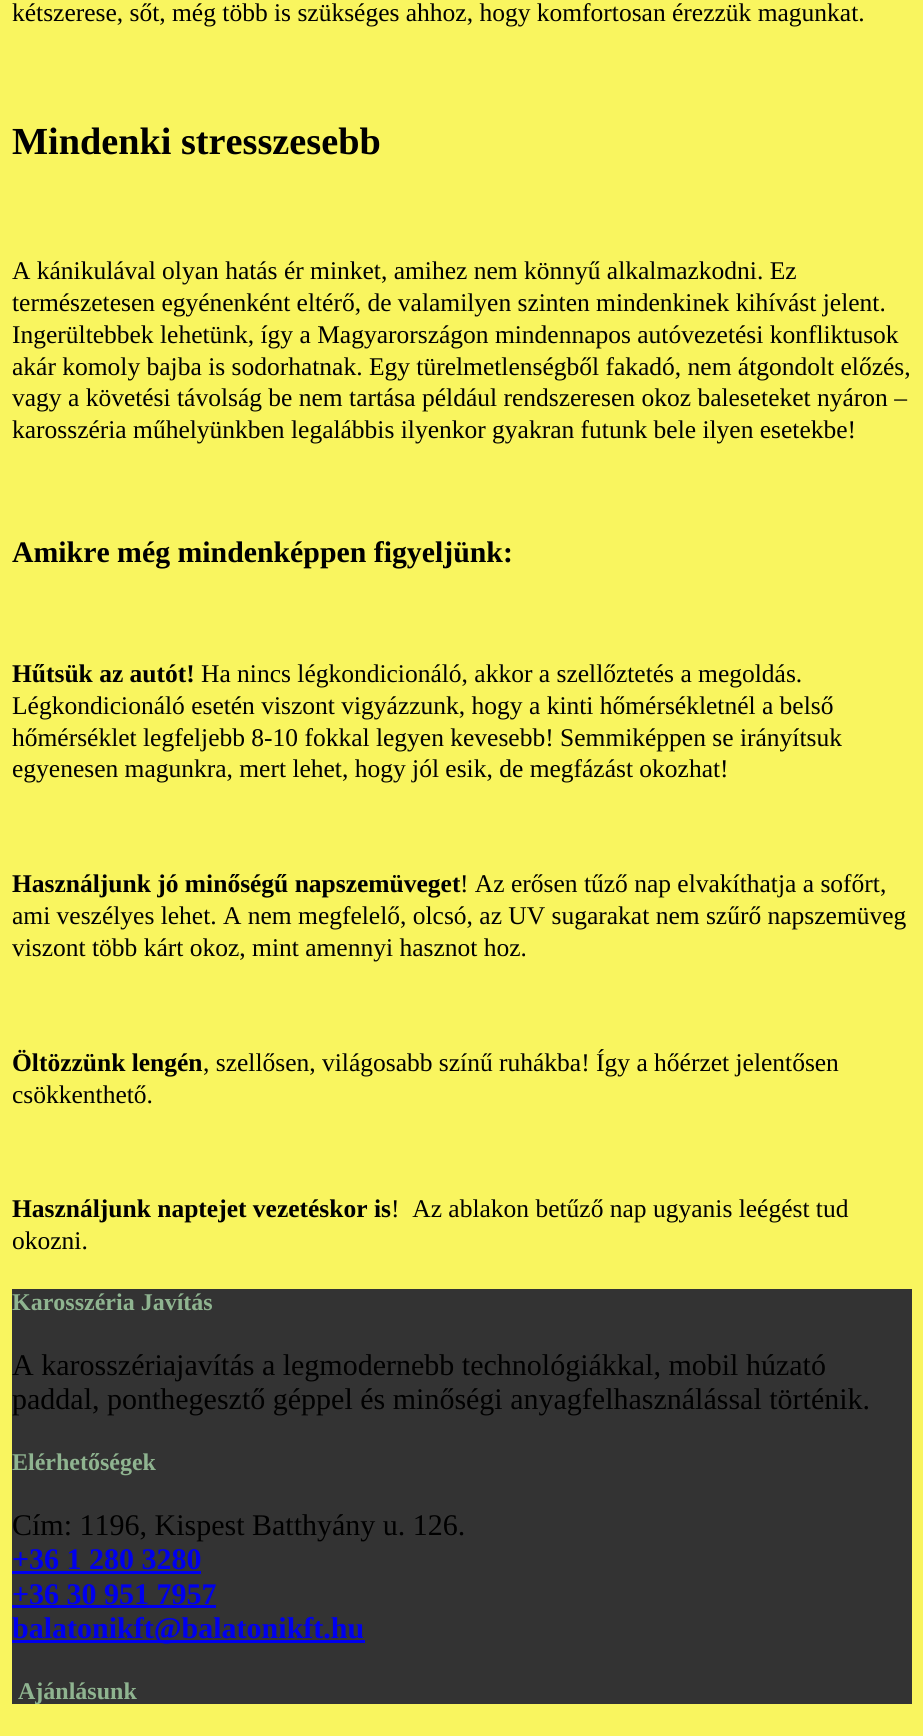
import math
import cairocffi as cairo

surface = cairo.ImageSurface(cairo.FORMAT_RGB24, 923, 1736)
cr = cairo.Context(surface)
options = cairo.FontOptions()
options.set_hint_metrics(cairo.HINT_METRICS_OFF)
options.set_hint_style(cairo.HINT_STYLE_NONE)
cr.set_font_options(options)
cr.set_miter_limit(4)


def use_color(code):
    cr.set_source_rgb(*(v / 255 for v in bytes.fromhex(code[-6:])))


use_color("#f9f55f")
cr.paint()
cr.select_font_face("Liberation Serif")
cr.set_font_size(25.5)
use_color("#000000")
cr.move_to(12, 21)
cr.show_text("kétszerese, sőt, még több is szükséges ahhoz, hogy komfortosan érezzük magunkat.")
cr.select_font_face("Liberation Serif", cairo.FONT_SLANT_NORMAL, cairo.FONT_WEIGHT_BOLD)
cr.set_font_size(38.25)
cr.move_to(12, 154)
cr.show_text("Mindenki stresszesebb")
cr.select_font_face("Liberation Serif")
cr.set_font_size(25.5)
cr.move_to(12, 279)
cr.show_text("A kánikulával olyan hatás ér minket, amihez nem könnyű alkalmazkodni. Ez")
cr.move_to(12, 311)
cr.show_text("természetesen egyénenként eltérő, de valamilyen szinten mindenkinek kihívást jelent.")
cr.move_to(12, 343)
cr.show_text("Ingerültebbek lehetünk, így a Magyarországon mindennapos autóvezetési konfliktusok")
cr.move_to(12, 375)
cr.show_text("akár komoly bajba is sodorhatnak. Egy türelmetlenségből fakadó, nem átgondolt előzés,")
cr.move_to(12, 406)
cr.show_text("vagy a követési távolság be nem tartása például rendszeresen okoz baleseteket nyáron –")
cr.move_to(12, 438)
cr.show_text("karosszéria műhelyünkben legalábbis ilyenkor gyakran futunk bele ilyen esetekbe!")
cr.select_font_face("Liberation Serif", cairo.FONT_SLANT_NORMAL, cairo.FONT_WEIGHT_BOLD)
cr.set_font_size(29.8)
cr.move_to(12, 562)
cr.show_text("Amikre még mindenképpen figyeljünk:")
cr.set_font_size(25.5)
cr.move_to(12, 682)
cr.show_text("Hűtsük az autót!")
cr.select_font_face("Liberation Serif")
cr.move_to(201, 682)
cr.show_text("Ha nincs légkondicionáló, akkor a szellőztetés a megoldás.")
cr.move_to(12, 714)
cr.show_text("Légkondicionáló esetén viszont vigyázzunk, hogy a kinti hőmérsékletnél a belső")
cr.move_to(12, 746)
cr.show_text("hőmérséklet legfeljebb 8-10 fokkal legyen kevesebb! Semmiképpen se irányítsuk")
cr.move_to(12, 777)
cr.show_text("egyenesen magunkra, mert lehet, hogy jól esik, de megfázást okozhat!")
cr.select_font_face("Liberation Serif", cairo.FONT_SLANT_NORMAL, cairo.FONT_WEIGHT_BOLD)
cr.move_to(12, 892)
cr.show_text("Használjunk jó minőségű napszemüveget")
cr.select_font_face("Liberation Serif")
cr.move_to(460, 892)
cr.show_text("! Az erősen tűző nap elvakíthatja a sofőrt,")
cr.move_to(12, 924)
cr.show_text("ami veszélyes lehet. A nem megfelelő, olcsó, az UV sugarakat nem szűrő napszemüveg")
cr.move_to(12, 956)
cr.show_text("viszont több kárt okoz, mint amennyi hasznot hoz.")
cr.select_font_face("Liberation Serif", cairo.FONT_SLANT_NORMAL, cairo.FONT_WEIGHT_BOLD)
cr.move_to(12, 1071)
cr.show_text("Öltözzünk lengén")
cr.select_font_face("Liberation Serif")
cr.move_to(203, 1071)
cr.show_text(", szellősen, világosabb színű ruhákba! Így a hőérzet jelentősen")
cr.move_to(12, 1103)
cr.show_text("csökkenthető.")
cr.select_font_face("Liberation Serif", cairo.FONT_SLANT_NORMAL, cairo.FONT_WEIGHT_BOLD)
cr.move_to(12, 1217)
cr.show_text("Használjunk naptejet vezetéskor is")
cr.select_font_face("Liberation Serif")
cr.move_to(391, 1217)
cr.show_text("!  Az ablakon betűző nap ugyanis leégést tud")
cr.move_to(12, 1249)
cr.show_text("okozni.")
use_color("#333333")
cr.rectangle(12, 1289, 900, 415)
cr.fill()
cr.select_font_face("Liberation Serif", cairo.FONT_SLANT_NORMAL, cairo.FONT_WEIGHT_BOLD)
cr.set_font_size(24)
use_color("#8fb490")
cr.move_to(12, 1310)
cr.show_text("Karosszéria Javítás")
cr.select_font_face("Liberation Serif")
cr.set_font_size(30)
use_color("#000000")
cr.move_to(12, 1375)
cr.show_text("A karosszériajavítás a legmodernebb technológiákkal, mobil húzató")
cr.move_to(12, 1409)
cr.show_text("paddal, ponthegesztő géppel és minőségi anyagfelhasználással történik.")
cr.select_font_face("Liberation Serif", cairo.FONT_SLANT_NORMAL, cairo.FONT_WEIGHT_BOLD)
cr.set_font_size(24)
use_color("#8fb490")
cr.move_to(12, 1470)
cr.show_text("Elérhetőségek")
cr.select_font_face("Liberation Serif")
cr.set_font_size(30)
use_color("#000000")
cr.move_to(12, 1535)
cr.show_text("Cím: 1196, Kispest Batthyány u. 126.")
cr.select_font_face("Liberation Serif", cairo.FONT_SLANT_NORMAL, cairo.FONT_WEIGHT_BOLD)
use_color("#0000ee")
cr.move_to(12, 1569)
cr.show_text("+36 1 280 3280")
cr.rectangle(12, 1571, 189, 3)
cr.fill()
cr.move_to(12, 1604)
cr.show_text("+36 30 951 7957")
cr.rectangle(12, 1605, 204, 3)
cr.fill()
cr.rectangle(12, 1640, 353, 3)
cr.fill()
cr.move_to(12, 1638)
cr.show_text("balatonikft@balatonikft.hu")
cr.set_font_size(24)
use_color("#8fb490")
cr.move_to(18, 1699)
cr.show_text("Ajánlásunk")
surface.write_to_png("result.png")
